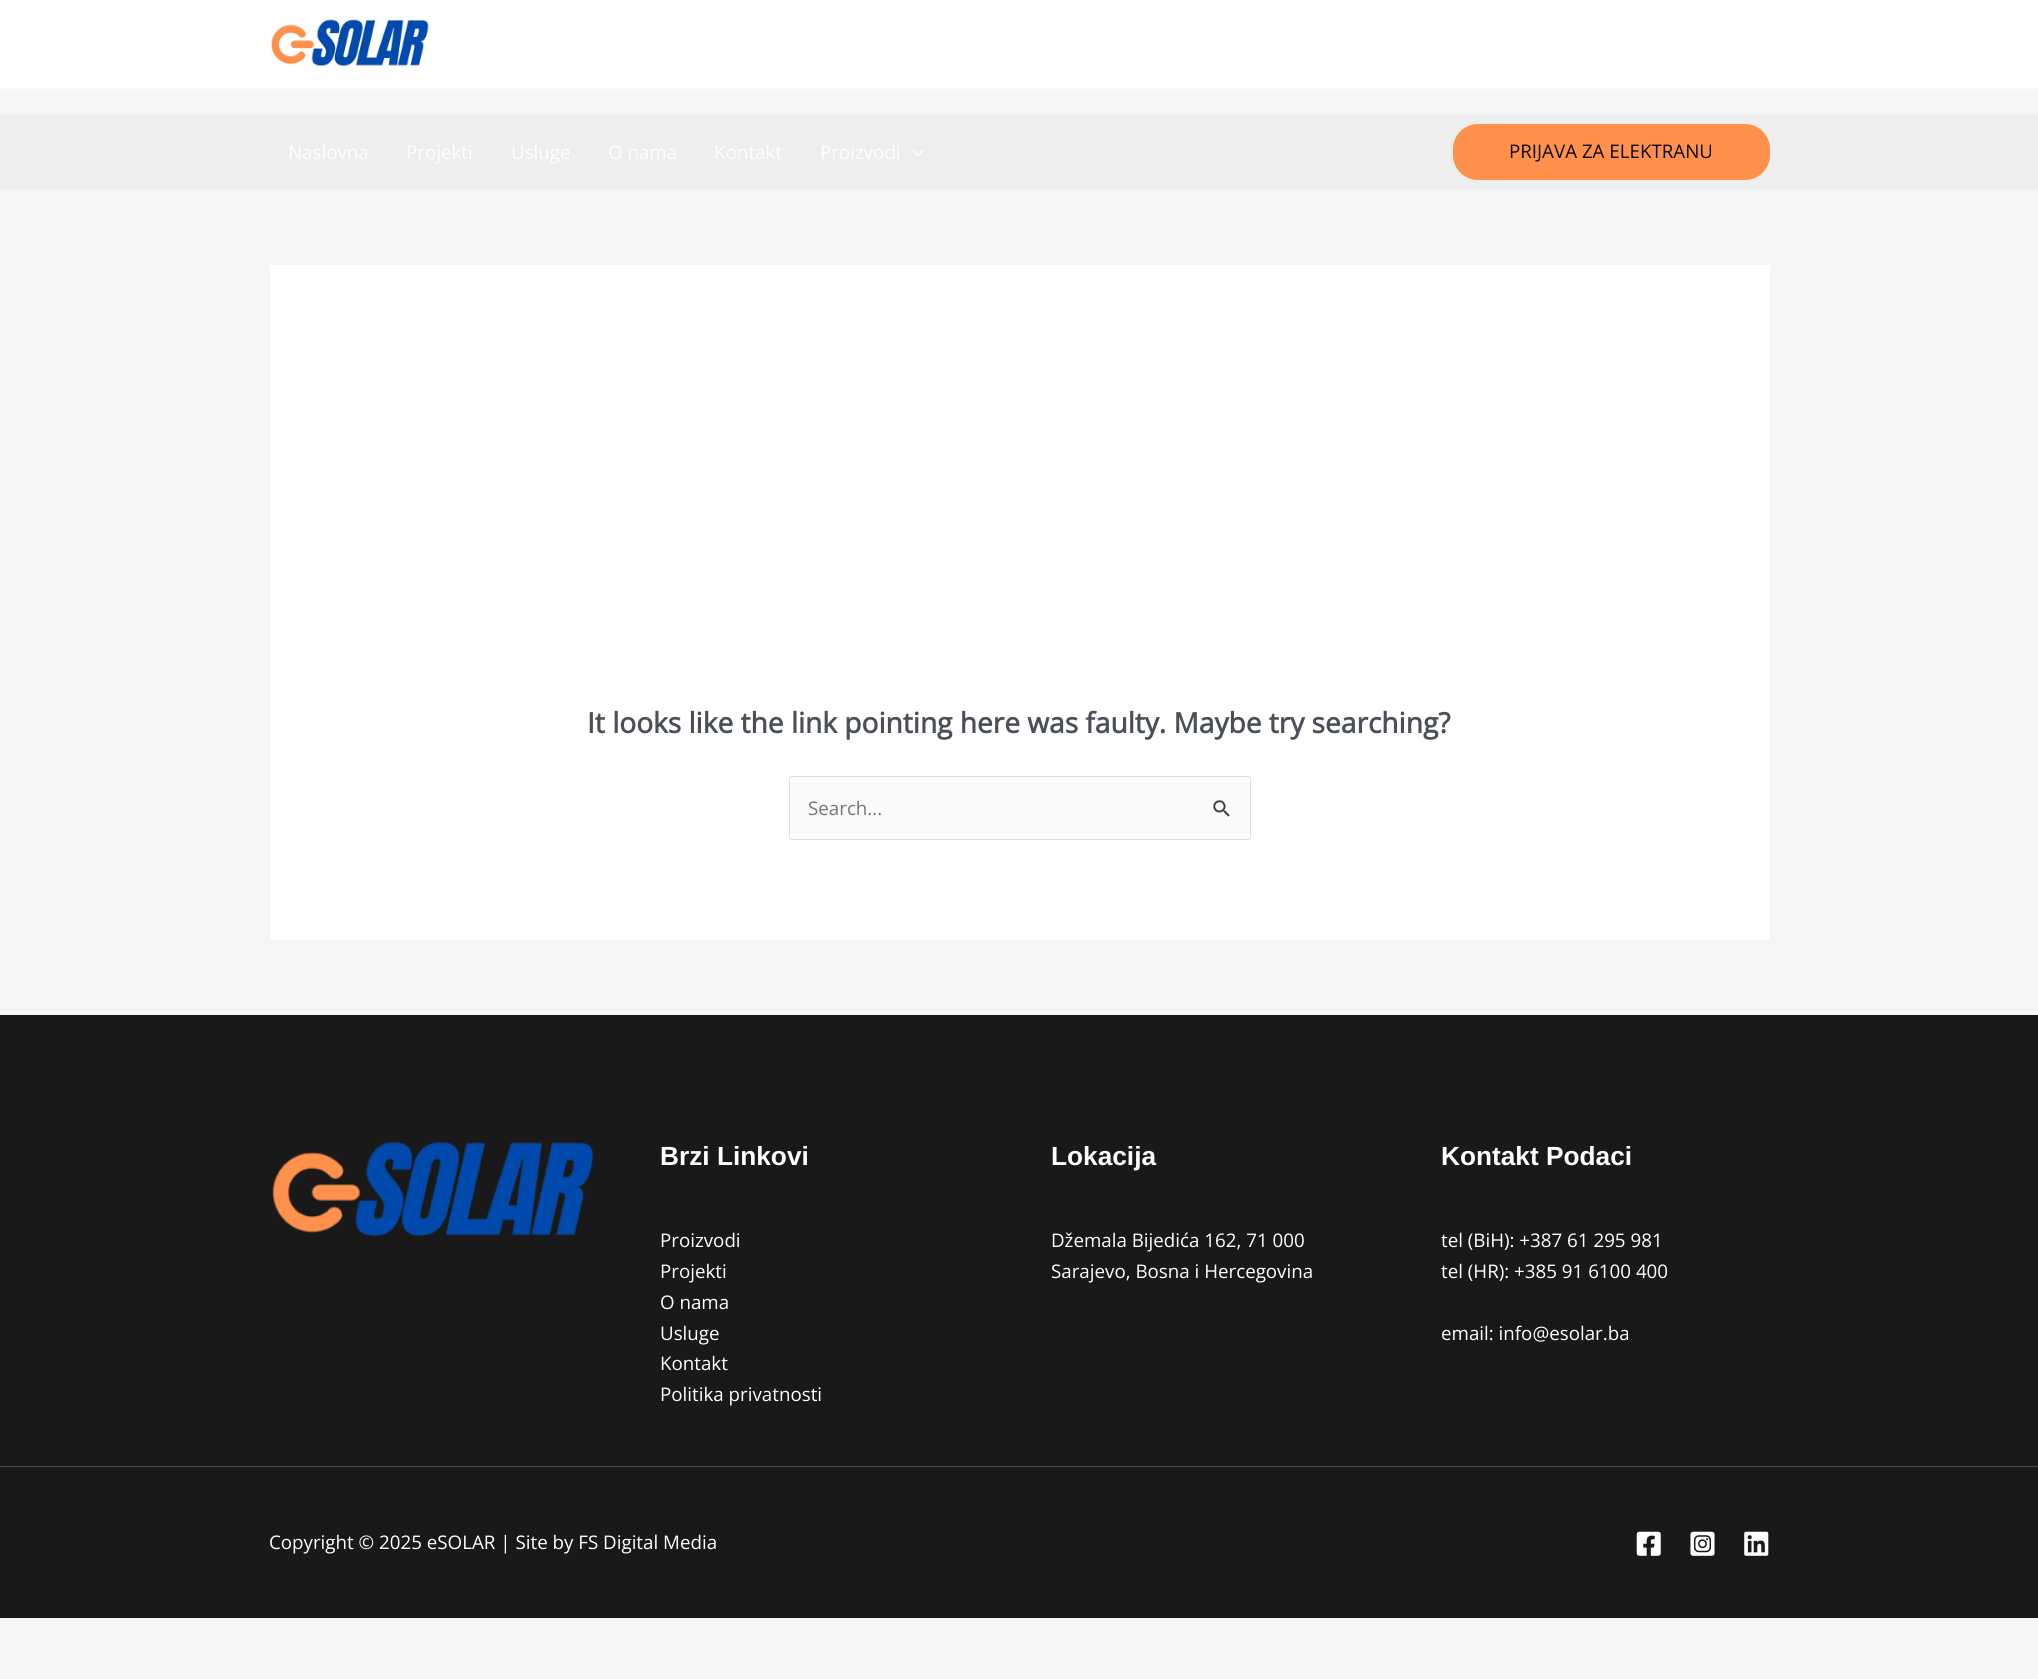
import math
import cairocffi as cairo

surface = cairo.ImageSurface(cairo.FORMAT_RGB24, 2038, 1679)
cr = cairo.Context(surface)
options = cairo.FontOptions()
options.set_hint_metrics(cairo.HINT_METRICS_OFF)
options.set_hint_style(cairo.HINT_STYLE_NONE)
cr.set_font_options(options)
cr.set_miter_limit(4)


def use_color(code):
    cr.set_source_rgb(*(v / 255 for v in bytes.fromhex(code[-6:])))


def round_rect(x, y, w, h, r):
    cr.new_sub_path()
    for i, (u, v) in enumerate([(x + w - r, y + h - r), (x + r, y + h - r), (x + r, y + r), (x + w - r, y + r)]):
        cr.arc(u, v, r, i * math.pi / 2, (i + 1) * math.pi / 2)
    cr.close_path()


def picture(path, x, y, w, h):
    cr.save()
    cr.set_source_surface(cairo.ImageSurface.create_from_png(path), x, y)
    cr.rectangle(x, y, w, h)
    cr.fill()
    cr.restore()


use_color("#f5f5f5")
cr.paint()
use_color("#ffffff")
cr.rectangle(0, 0, 2038, 88)
cr.fill()
use_color("#fafafa")
cr.rectangle(0, 88, 2038, 1)
cr.fill()
picture("img1.png", 271, 19, 158, 48)
use_color("#eeeeee")
cr.rectangle(0, 114, 2038, 75)
cr.fill()
use_color("#f2f5f7")
cr.rectangle(0, 189, 2038, 1)
cr.fill()
cr.select_font_face("Open Sans")
cr.set_font_size(18.75)
use_color("#ffffff")
cr.move_to(288, 159)
cr.show_text("Naslovna")
cr.move_to(406, 159)
cr.show_text("Projekti")
cr.move_to(511, 159)
cr.show_text("Usluge")
cr.move_to(608, 159)
cr.show_text("O nama")
cr.move_to(714, 159)
cr.show_text("Kontakt")
cr.move_to(820, 159)
cr.show_text("Proizvodi")
picture("img2.png", 913, 150, 10, 6)
use_color("#ff914d")
round_rect(1453, 124, 317, 56, 25)
cr.fill()
use_color("#0a0908")
cr.move_to(1509, 158)
cr.show_text("PRIJAVA ZA ELEKTRANU")
use_color("#ffffff")
cr.rectangle(270, 265, 1500, 675)
cr.fill()
cr.select_font_face("Open Sans", cairo.FONT_SLANT_NORMAL, cairo.FONT_WEIGHT_BOLD)
cr.set_font_size(28.1)
use_color("#4b4f58")
cr.move_to(587, 733)
cr.show_text("It looks like the link pointing here was faulty. Maybe try searching?")
use_color("#fafafa")
round_rect(789.5, 776.5, 461, 63, 2)
cr.fill_preserve()
use_color("#dddddd")
cr.set_line_width(1)
cr.stroke()
cr.select_font_face("Open Sans")
cr.set_font_size(18.75)
use_color("#757575")
cr.move_to(808, 815)
cr.show_text("Search...")
picture("img3.png", 1213, 800, 17, 17)
use_color("#1a1919")
cr.rectangle(0, 1015, 2038, 451)
cr.fill()
picture("img4.png", 272, 1142, 322, 94)
cr.select_font_face("Liberation Sans", cairo.FONT_SLANT_NORMAL, cairo.FONT_WEIGHT_BOLD)
cr.set_font_size(26.25)
use_color("#ffffff")
cr.move_to(660, 1165)
cr.show_text("Brzi Linkovi")
cr.select_font_face("Open Sans")
cr.set_font_size(18.75)
cr.move_to(660, 1247)
cr.show_text("Proizvodi")
cr.move_to(660, 1278)
cr.show_text("Projekti")
cr.move_to(660, 1309)
cr.show_text("O nama")
cr.move_to(660, 1340)
cr.show_text("Usluge")
cr.move_to(660, 1370)
cr.show_text("Kontakt")
cr.move_to(660, 1401)
cr.show_text("Politika privatnosti")
cr.select_font_face("Liberation Sans", cairo.FONT_SLANT_NORMAL, cairo.FONT_WEIGHT_BOLD)
cr.set_font_size(26.25)
cr.move_to(1051, 1165)
cr.show_text("Lokacija")
cr.select_font_face("Open Sans")
cr.set_font_size(18.75)
cr.move_to(1051, 1247)
cr.show_text("Džemala Bijedića 162, 71 000")
cr.move_to(1051, 1278)
cr.show_text("Sarajevo, Bosna i Hercegovina")
cr.select_font_face("Liberation Sans", cairo.FONT_SLANT_NORMAL, cairo.FONT_WEIGHT_BOLD)
cr.set_font_size(26.25)
cr.move_to(1441, 1165)
cr.show_text("Kontakt Podaci")
cr.select_font_face("Open Sans")
cr.set_font_size(18.75)
cr.move_to(1441, 1247)
cr.show_text("tel (BiH): +387 61 295 981")
cr.move_to(1441, 1278)
cr.show_text("tel (HR): +385 91 6100 400")
cr.move_to(1441, 1340)
cr.show_text("email: info@esolar.ba")
use_color("#1a1919")
cr.rectangle(0, 1467, 2038, 151)
cr.fill()
use_color("#484646")
cr.rectangle(0, 1466, 2038, 1)
cr.fill()
use_color("#ffffff")
cr.move_to(269, 1549)
cr.show_text("Copyright © 2025 eSOLAR | Site by FS Digital Media")
picture("img5.png", 1636, 1531, 25, 25)
picture("img6.png", 1690, 1531, 25, 25)
picture("img7.png", 1744, 1531, 25, 25)
surface.write_to_png("result.png")
